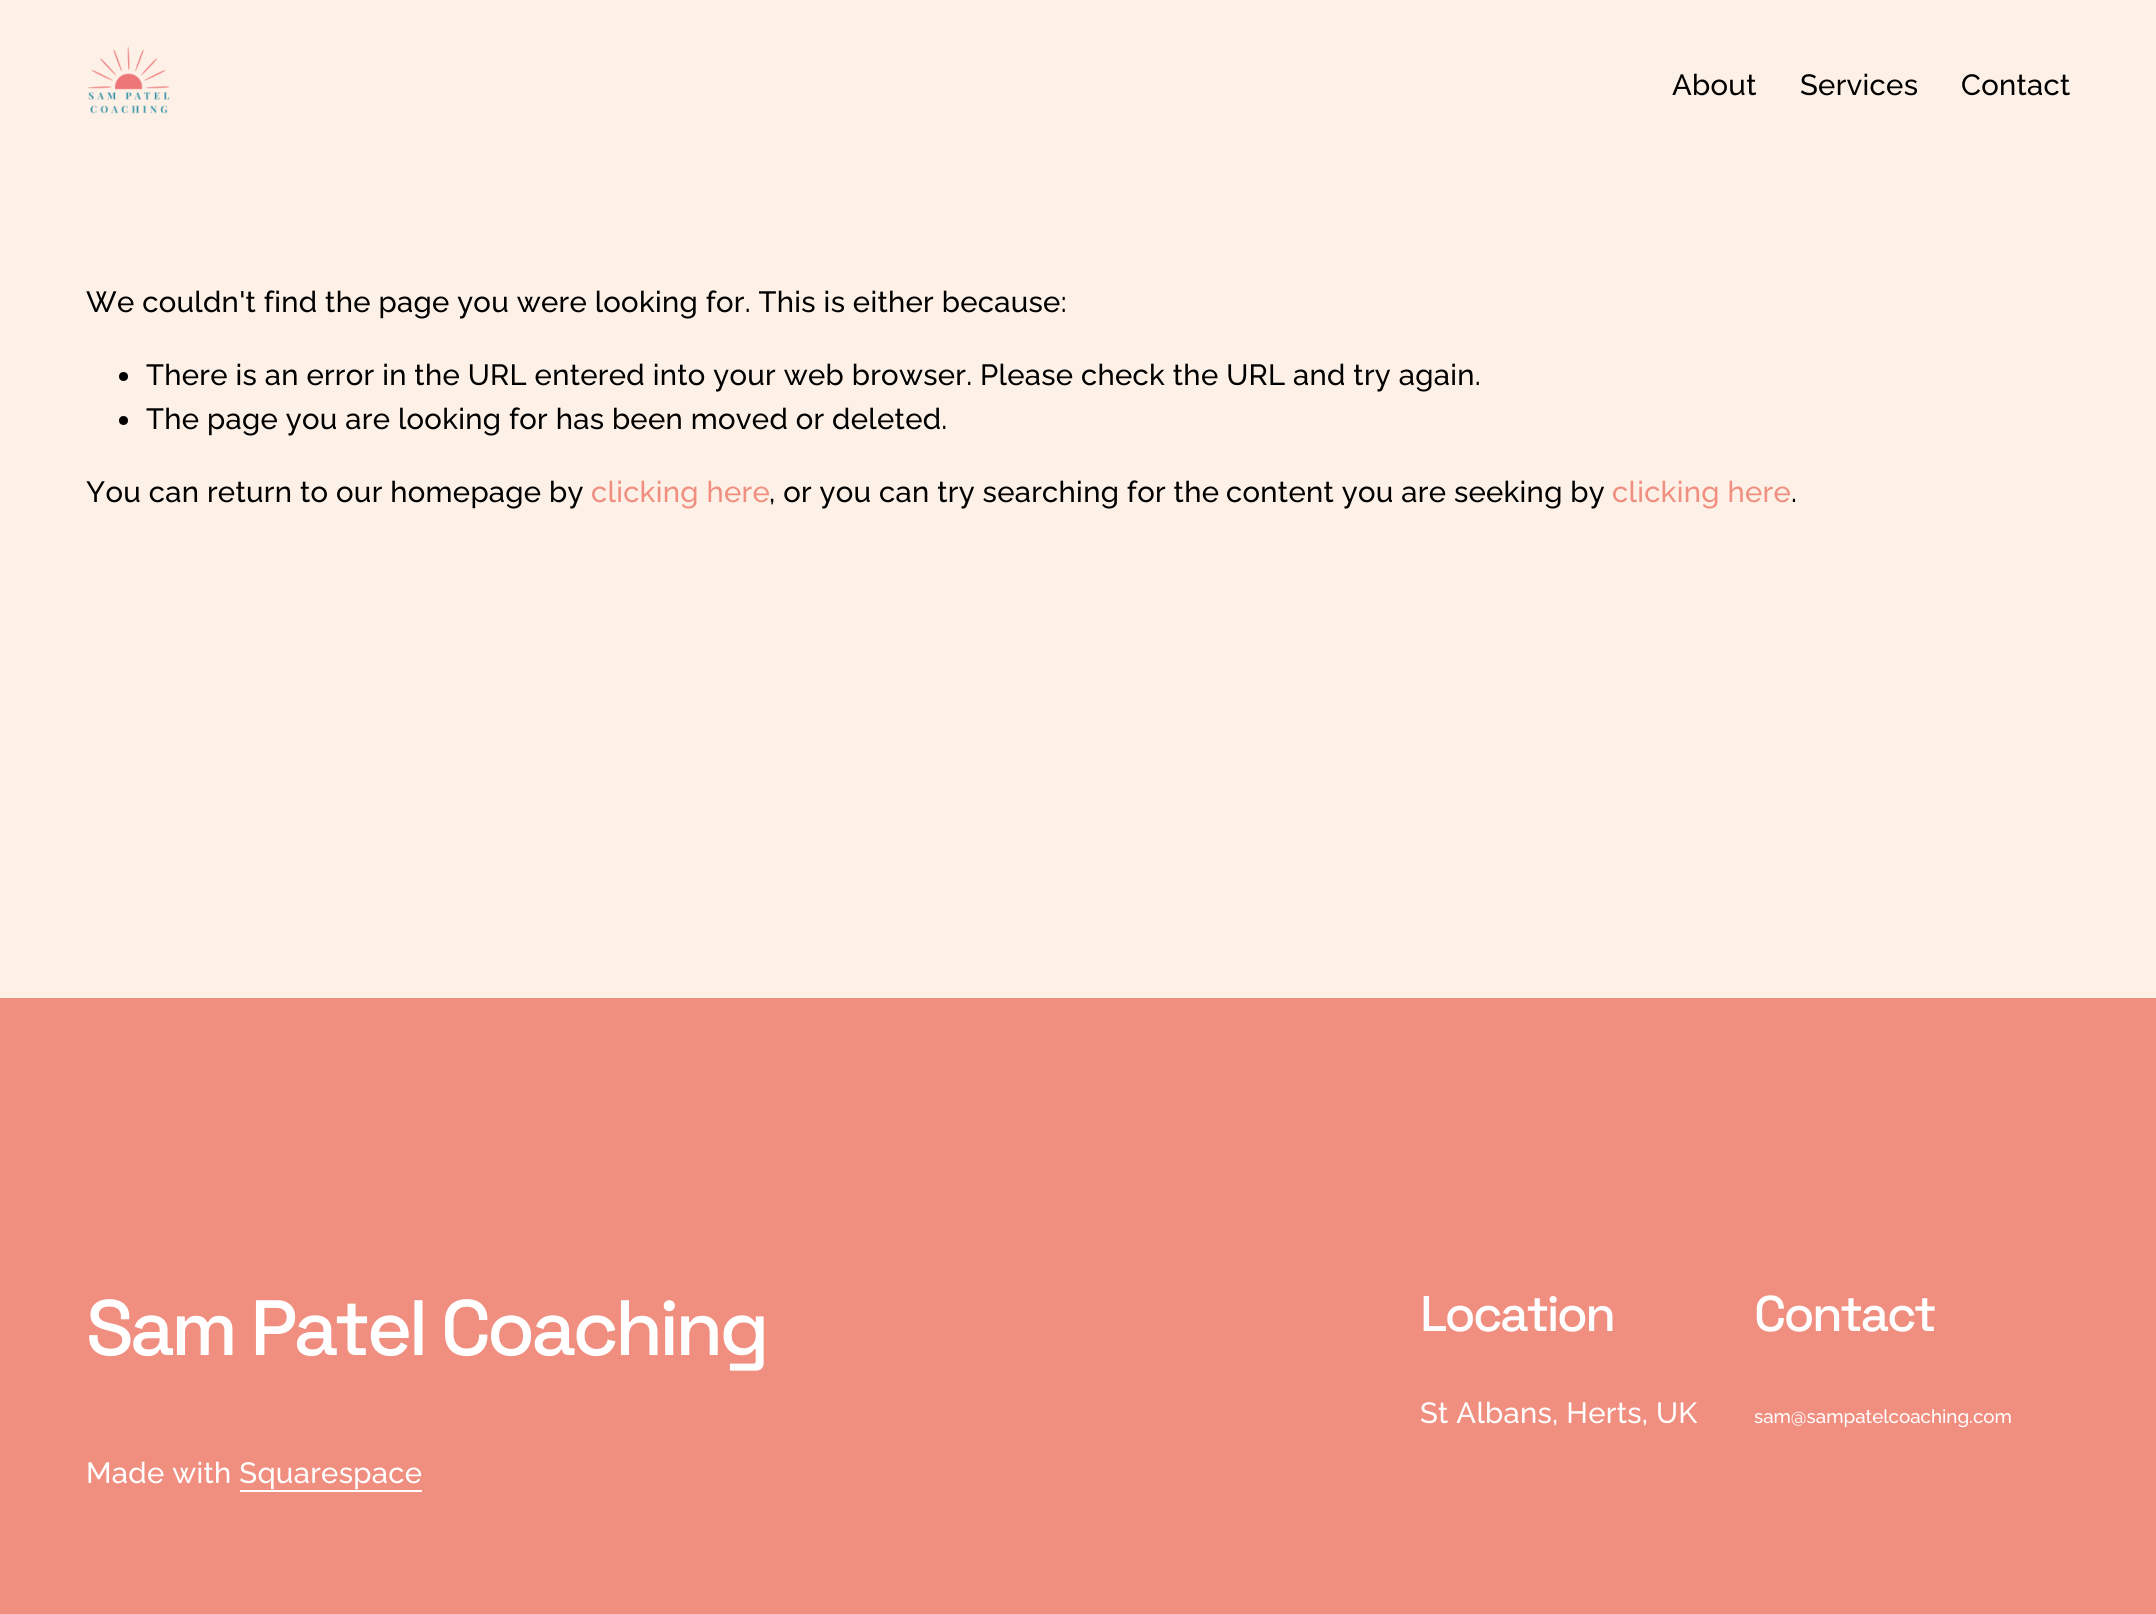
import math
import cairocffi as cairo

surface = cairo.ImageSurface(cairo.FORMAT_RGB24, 2156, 1614)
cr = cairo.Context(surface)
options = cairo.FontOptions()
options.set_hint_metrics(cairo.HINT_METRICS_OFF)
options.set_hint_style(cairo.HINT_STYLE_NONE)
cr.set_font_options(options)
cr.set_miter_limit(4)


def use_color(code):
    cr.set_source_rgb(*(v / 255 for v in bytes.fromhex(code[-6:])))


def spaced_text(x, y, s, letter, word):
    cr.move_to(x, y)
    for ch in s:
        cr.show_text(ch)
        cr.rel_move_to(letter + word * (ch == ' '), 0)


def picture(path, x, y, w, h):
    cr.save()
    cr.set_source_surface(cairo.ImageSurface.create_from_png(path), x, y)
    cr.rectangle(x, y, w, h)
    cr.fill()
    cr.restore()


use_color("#fdf0e6")
cr.paint()
picture("img1.png", 87, 46, 83, 68)
cr.select_font_face("Raleway Medium")
cr.set_font_size(29.2)
use_color("#000000")
spaced_text(1672, 95, "About", 0.3, 0)
spaced_text(1800, 95, "Services", 0.3, 0)
spaced_text(1961, 95, "Contact", 0.3, 0)
spaced_text(86, 312, "We couldn't find the page you were looking for. This is either because:", 0.3, 0)
cr.new_path()
cr.arc(123.5, 376.5, 4.5, 0, 2 * math.pi)
cr.fill()
spaced_text(146, 385, "There is an error in the URL entered into your web browser. Please check the URL and try again.", 0.3, 0)
cr.new_path()
cr.arc(123.5, 420.5, 4.5, 0, 2 * math.pi)
cr.fill()
spaced_text(146, 429, "The page you are looking for has been moved or deleted.", 0.3, 0)
spaced_text(86, 502, "You can return to our homepage by", 0.3, 0)
use_color("#f08e80")
spaced_text(591, 502, "clicking here", 0.3, 0)
use_color("#000000")
spaced_text(769, 502, ", or you can try searching for the", 0.3, 0)
spaced_text(1226, 502, "content you are seeking by", 0.3, 0)
use_color("#f08e80")
spaced_text(1612, 502, "clicking here", 0.3, 0)
use_color("#000000")
spaced_text(1791, 502, ".", 0.3, 0)
use_color("#f08e80")
cr.rectangle(0, 998, 2156, 616)
cr.fill()
cr.select_font_face("Space Grotesk Medium")
cr.set_font_size(78.25)
use_color("#ffffff")
spaced_text(86, 1355, "Sam Patel Coaching", -3.9, 0)
cr.set_font_size(50)
spaced_text(1420, 1331, "Location", -2.5, 0)
cr.select_font_face("Raleway Medium")
cr.set_font_size(29.2)
spaced_text(1420, 1423, "St Albans, Herts, UK", 0.3, 0)
cr.select_font_face("Space Grotesk Medium")
cr.set_font_size(50)
spaced_text(1754, 1331, "Contact", -2.5, 0)
cr.select_font_face("Raleway Medium")
cr.set_font_size(18.75)
cr.move_to(1754, 1423)
cr.show_text("sam@sampatelcoaching.com")
cr.set_font_size(29.2)
spaced_text(86, 1483, "Made with Squarespace", 0.3, 0)
cr.rectangle(240, 1490, 182, 2)
cr.fill()
surface.write_to_png("result.png")
